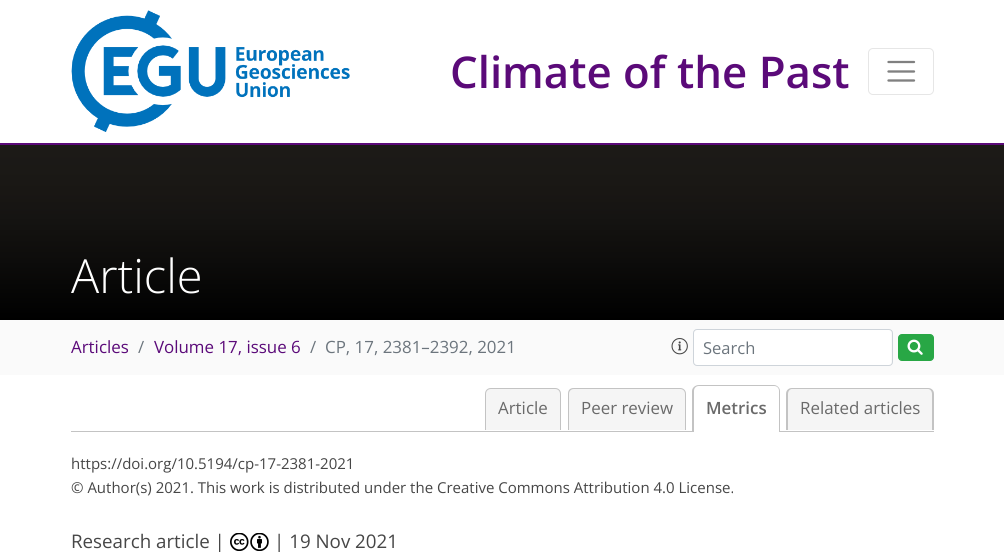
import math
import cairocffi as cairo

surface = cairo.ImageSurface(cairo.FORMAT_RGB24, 1004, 552)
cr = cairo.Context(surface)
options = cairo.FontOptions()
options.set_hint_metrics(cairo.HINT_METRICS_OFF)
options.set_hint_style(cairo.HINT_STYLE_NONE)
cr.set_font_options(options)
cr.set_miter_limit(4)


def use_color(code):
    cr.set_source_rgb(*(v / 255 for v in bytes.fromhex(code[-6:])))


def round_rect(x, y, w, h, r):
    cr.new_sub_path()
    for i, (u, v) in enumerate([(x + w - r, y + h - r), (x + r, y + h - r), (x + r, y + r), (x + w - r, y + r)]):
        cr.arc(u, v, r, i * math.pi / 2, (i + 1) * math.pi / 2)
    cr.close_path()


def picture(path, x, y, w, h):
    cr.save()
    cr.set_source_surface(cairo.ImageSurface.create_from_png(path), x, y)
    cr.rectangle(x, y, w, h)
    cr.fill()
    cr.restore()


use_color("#ffffff")
cr.paint()
picture("img1.png", 71, 10, 279, 122)
cr.select_font_face("Open Sans SemiBold")
cr.set_font_size(43.75)
use_color("#5b0a79")
cr.move_to(450, 88)
cr.show_text("Climate of the Past")
round_rect(868.5, 48.5, 65, 46, 4.5)
use_color("#e6e6e6")
cr.set_line_width(1)
cr.stroke()
cr.new_path()
cr.move_to(888.5, 62)
cr.line_to(914, 62)
cr.move_to(888.5, 71.5)
cr.line_to(914, 71.5)
cr.move_to(888.5, 80.5)
cr.line_to(914, 80.5)
use_color("#808080")
cr.set_line_width(2.3)
cr.set_line_cap(cairo.LINE_CAP_ROUND)
cr.stroke()
use_color("#5b0a79")
cr.rectangle(0, 143, 1004, 2)
cr.fill()
gradient = cairo.LinearGradient(503, 320, 503, 145)
gradient.add_color_stop_rgba(0, 0, 0, 0, 1)
gradient.add_color_stop_rgba(0.19, 0.027, 0.027, 0.024, 1)
gradient.add_color_stop_rgba(0.34, 0.051, 0.047, 0.043, 1)
gradient.add_color_stop_rgba(0.47, 0.067, 0.063, 0.055, 1)
gradient.add_color_stop_rgba(0.56, 0.078, 0.075, 0.067, 1)
gradient.add_color_stop_rgba(0.65, 0.09, 0.082, 0.075, 1)
gradient.add_color_stop_rgba(0.73, 0.098, 0.09, 0.078, 1)
gradient.add_color_stop_rgba(0.8, 0.102, 0.094, 0.082, 1)
gradient.add_color_stop_rgba(0.86, 0.106, 0.098, 0.086, 1)
gradient.add_color_stop_rgba(0.91, 0.106, 0.098, 0.09, 1)
gradient.add_color_stop_rgba(0.95, 0.11, 0.102, 0.09, 1)
gradient.add_color_stop_rgba(1, 0.11, 0.102, 0.09, 1)
cr.set_source(gradient)
cr.rectangle(0, 145, 1004, 175)
cr.fill()
cr.select_font_face("Open Sans Light")
cr.set_font_size(47)
use_color("#ffffff")
cr.move_to(71, 293)
cr.show_text("Article")
use_color("#fafafa")
cr.rectangle(0, 320, 1004, 55)
cr.fill()
cr.select_font_face("Open Sans")
cr.set_font_size(16.9)
use_color("#5b0a79")
cr.move_to(71, 353)
cr.show_text("Articles")
use_color("#6c757d")
cr.move_to(138, 353)
cr.show_text("/")
use_color("#5b0a79")
cr.move_to(154, 353)
cr.show_text("Volume 17, issue 6")
use_color("#6c757d")
cr.move_to(310, 353)
cr.show_text("/")
cr.move_to(325, 353)
cr.show_text("CP, 17, 2381–2392, 2021")
picture("img2.png", 671, 338, 17, 17)
use_color("#ffffff")
round_rect(694, 330, 197, 35, 2.5)
cr.fill()
round_rect(693.5, 329.5, 199, 36, 3.5)
use_color("#ced4da")
cr.set_line_width(1)
cr.set_line_cap(cairo.LINE_CAP_BUTT)
cr.stroke()
cr.set_font_size(16.5)
use_color("#6c757d")
cr.move_to(703, 354)
cr.show_text("Search")
use_color("#28a745")
round_rect(898.5, 334.5, 35, 26, 3.5)
cr.fill_preserve()
cr.stroke()
picture("img3.png", 907, 339, 16, 16)
use_color("#c3c3c3")
cr.rectangle(71, 431, 863, 1)
cr.fill()
use_color("#f5f5f5")
cr.new_path()
cr.move_to(491, 388)
cr.line_to(555, 388)
cr.curve_to(558.5, 388, 561, 390.5, 561, 394)
cr.line_to(561, 430)
cr.line_to(485, 430)
cr.line_to(485, 394)
cr.curve_to(485, 390.5, 487.5, 388, 491, 388)
cr.close_path()
cr.fill()
use_color("#c3c3c3")
cr.set_fill_rule(cairo.FILL_RULE_EVEN_ODD)
cr.new_path()
cr.move_to(491, 388)
cr.line_to(555, 388)
cr.curve_to(558, 388, 561, 390, 561, 394)
cr.line_to(561, 430)
cr.line_to(485, 430)
cr.line_to(485, 394)
cr.curve_to(485, 390, 488, 388, 491, 388)
cr.close_path()
cr.move_to(491, 389)
cr.line_to(555, 389)
cr.curve_to(558, 389, 560, 391, 560, 394)
cr.line_to(560, 430)
cr.line_to(486, 430)
cr.line_to(486, 394)
cr.curve_to(486, 391, 488, 389, 491, 389)
cr.close_path()
cr.fill()
cr.set_font_size(16.9)
use_color("#6a6a6a")
cr.move_to(498, 414)
cr.show_text("Article")
use_color("#f5f5f5")
cr.new_path()
cr.move_to(574, 388)
cr.line_to(680, 388)
cr.curve_to(683.5, 388, 686, 390.5, 686, 394)
cr.line_to(686, 430)
cr.line_to(568, 430)
cr.line_to(568, 394)
cr.curve_to(568, 390.5, 570.5, 388, 574, 388)
cr.close_path()
cr.fill()
use_color("#c3c3c3")
cr.new_path()
cr.move_to(574, 388)
cr.line_to(680, 388)
cr.curve_to(683, 388, 686, 390, 686, 394)
cr.line_to(686, 430)
cr.line_to(568, 430)
cr.line_to(568, 394)
cr.curve_to(568, 390, 570, 388, 574, 388)
cr.close_path()
cr.move_to(574, 389)
cr.line_to(680, 389)
cr.curve_to(683, 389, 685, 391, 685, 394)
cr.line_to(685, 430)
cr.line_to(569, 430)
cr.line_to(569, 394)
cr.curve_to(569, 391, 571, 389, 574, 389)
cr.close_path()
cr.fill()
use_color("#6a6a6a")
cr.move_to(581, 414)
cr.show_text("Peer review")
use_color("#ffffff")
cr.new_path()
cr.move_to(699, 385)
cr.line_to(774, 385)
cr.curve_to(777.5, 385, 780, 387.5, 780, 391)
cr.line_to(780, 433)
cr.line_to(693, 433)
cr.line_to(693, 391)
cr.curve_to(693, 387.5, 695.5, 385, 699, 385)
cr.close_path()
cr.fill()
use_color("#c3c3c3")
cr.new_path()
cr.move_to(699, 385)
cr.line_to(774, 385)
cr.curve_to(777, 385, 780, 388, 780, 391)
cr.line_to(780, 432)
cr.line_to(692, 432)
cr.line_to(692, 391)
cr.curve_to(692, 388, 695, 385, 699, 385)
cr.close_path()
cr.move_to(699, 386)
cr.line_to(774, 386)
cr.curve_to(777, 386, 779, 388, 779, 391)
cr.line_to(779, 432)
cr.line_to(694, 432)
cr.line_to(694, 391)
cr.curve_to(694, 388, 696, 386, 699, 386)
cr.close_path()
cr.fill()
cr.select_font_face("Open Sans SemiBold")
use_color("#6a6a6a")
cr.move_to(706, 414)
cr.show_text("Metrics")
use_color("#f5f5f5")
cr.new_path()
cr.move_to(792, 388)
cr.line_to(928, 388)
cr.curve_to(931.5, 388, 934, 390.5, 934, 394)
cr.line_to(934, 430)
cr.line_to(786, 430)
cr.line_to(786, 394)
cr.curve_to(786, 390.5, 788.5, 388, 792, 388)
cr.close_path()
cr.fill()
use_color("#c3c3c3")
cr.new_path()
cr.move_to(792, 388)
cr.line_to(928, 388)
cr.curve_to(931, 388, 934, 390, 934, 394)
cr.line_to(934, 430)
cr.line_to(786, 430)
cr.line_to(786, 394)
cr.curve_to(786, 390, 789, 388, 792, 388)
cr.close_path()
cr.move_to(792, 389)
cr.line_to(928, 389)
cr.curve_to(930, 389, 932, 391, 932, 394)
cr.line_to(932, 430)
cr.line_to(788, 430)
cr.line_to(788, 394)
cr.curve_to(788, 391, 790, 389, 792, 389)
cr.close_path()
cr.fill()
cr.select_font_face("Open Sans")
use_color("#6a6a6a")
cr.move_to(800, 414)
cr.show_text("Related articles")
cr.set_font_size(15)
use_color("#464646")
cr.move_to(71, 469)
cr.show_text("https://doi.org/10.5194/cp-17-2381-2021")
cr.move_to(71, 493)
cr.show_text("© Author(s) 2021. This work is distributed under the Creative Commons Attribution 4.0 License.")
cr.set_font_size(18.75)
cr.move_to(71, 548)
cr.show_text("Research article |")
picture("img4.png", 230, 533, 39, 18)
cr.move_to(274, 548)
cr.show_text("| 19 Nov 2021")
surface.write_to_png("result.png")
